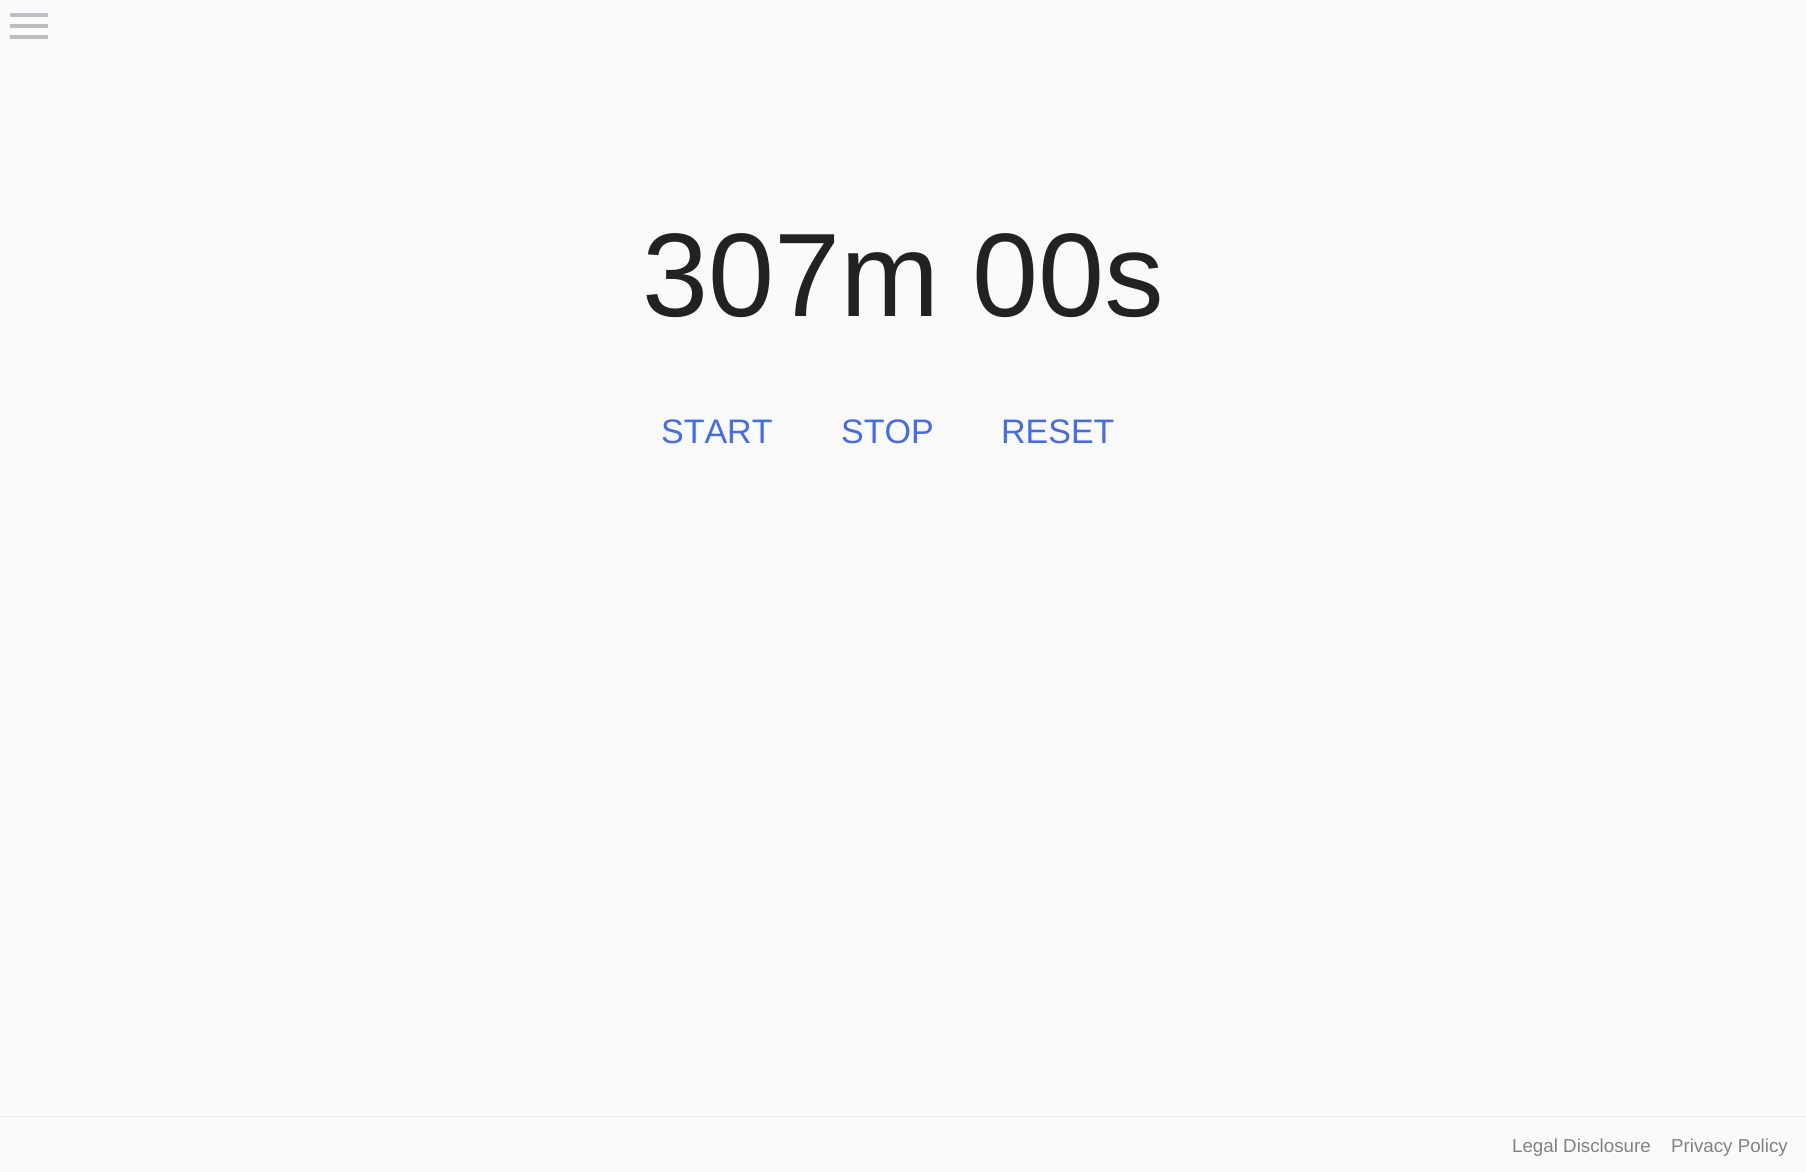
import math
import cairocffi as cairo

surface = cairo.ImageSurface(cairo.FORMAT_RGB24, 1806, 1172)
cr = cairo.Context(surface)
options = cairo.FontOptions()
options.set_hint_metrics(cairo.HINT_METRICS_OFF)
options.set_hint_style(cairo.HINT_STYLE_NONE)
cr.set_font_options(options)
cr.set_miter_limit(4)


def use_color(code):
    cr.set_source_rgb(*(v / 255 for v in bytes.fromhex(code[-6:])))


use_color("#fafafa")
cr.paint()
use_color("#bdbec2")
cr.rectangle(10, 13, 38, 4)
cr.fill()
cr.rectangle(10, 24, 38, 4)
cr.fill()
cr.rectangle(10, 35, 38, 4)
cr.fill()
cr.select_font_face("Liberation Sans")
cr.set_font_size(118.75)
use_color("#222222")
cr.move_to(642, 316)
cr.show_text("307m 00s")
cr.set_font_size(34)
use_color("#426bf2")
cr.move_to(661, 443)
cr.show_text("START")
cr.move_to(841, 443)
cr.show_text("STOP")
cr.move_to(1001, 443)
cr.show_text("RESET")
use_color("#eeeeee")
cr.rectangle(0, 1116, 1806, 1)
cr.fill()
cr.set_font_size(18.75)
use_color("#818181")
cr.move_to(1512, 1152)
cr.show_text("Legal Disclosure")
cr.move_to(1671, 1152)
cr.show_text("Privacy Policy")
surface.write_to_png("result.png")
